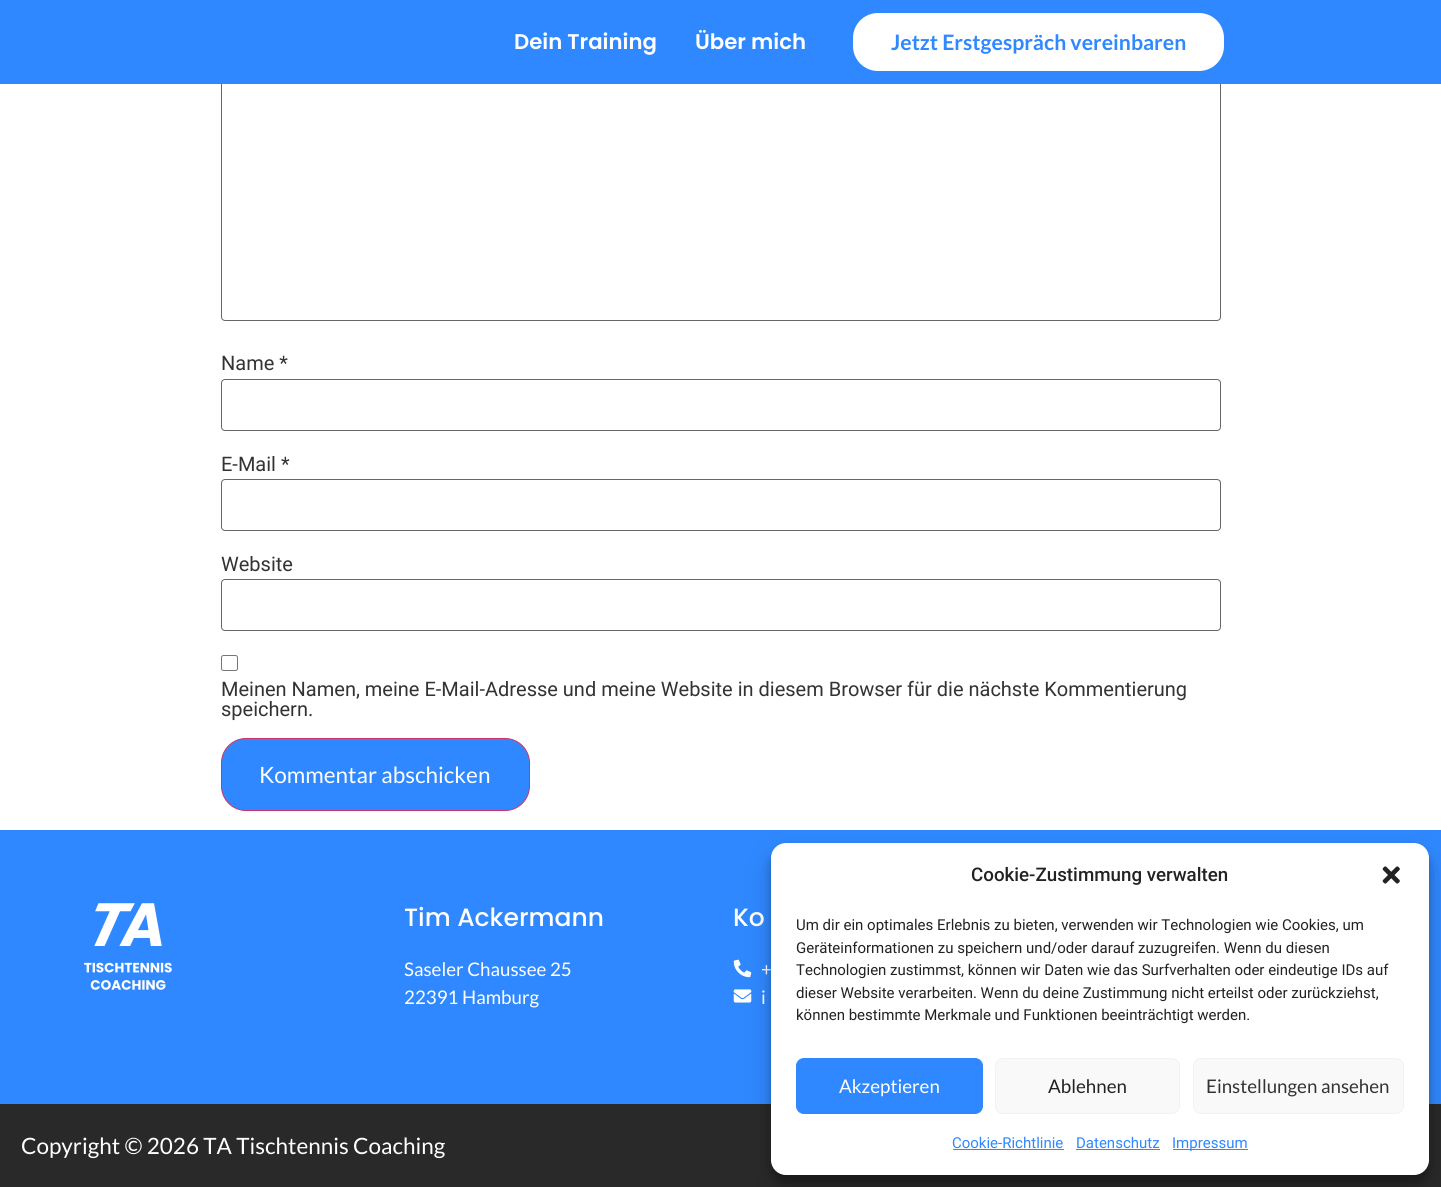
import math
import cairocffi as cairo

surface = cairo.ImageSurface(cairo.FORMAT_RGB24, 1441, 1187)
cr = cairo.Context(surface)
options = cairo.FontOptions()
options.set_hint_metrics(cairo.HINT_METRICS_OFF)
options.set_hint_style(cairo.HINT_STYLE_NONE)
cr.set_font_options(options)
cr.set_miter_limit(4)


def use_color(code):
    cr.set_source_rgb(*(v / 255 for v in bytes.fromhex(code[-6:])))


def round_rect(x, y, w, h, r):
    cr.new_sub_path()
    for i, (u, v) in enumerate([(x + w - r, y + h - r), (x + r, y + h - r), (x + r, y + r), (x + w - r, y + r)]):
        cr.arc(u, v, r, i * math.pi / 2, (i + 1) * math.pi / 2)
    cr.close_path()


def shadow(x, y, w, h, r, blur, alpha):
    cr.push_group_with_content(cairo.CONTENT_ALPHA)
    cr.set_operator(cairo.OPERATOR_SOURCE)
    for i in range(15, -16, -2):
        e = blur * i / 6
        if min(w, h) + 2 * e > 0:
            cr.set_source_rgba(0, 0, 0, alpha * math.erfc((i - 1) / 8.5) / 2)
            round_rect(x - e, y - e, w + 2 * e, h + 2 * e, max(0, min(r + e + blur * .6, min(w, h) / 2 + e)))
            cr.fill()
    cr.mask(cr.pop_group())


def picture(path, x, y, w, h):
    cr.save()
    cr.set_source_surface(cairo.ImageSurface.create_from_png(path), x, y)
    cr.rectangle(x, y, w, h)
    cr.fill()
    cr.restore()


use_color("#ffffff")
cr.paint()
round_rect(221.5, 59.5, 999, 261, 3.5)
use_color("#666666")
cr.set_line_width(1)
cr.stroke()
use_color("#2f88ff")
cr.rectangle(0, 0, 1441, 84)
cr.fill()
cr.select_font_face("Poppins SemiBold")
cr.set_font_size(21.25)
use_color("#ffffff")
cr.move_to(514, 49)
cr.show_text("Dein Training")
cr.move_to(695, 49)
cr.show_text("Über mich")
round_rect(853, 13, 371, 58, 25)
cr.fill()
cr.select_font_face("Lato", cairo.FONT_SLANT_NORMAL, cairo.FONT_WEIGHT_BOLD)
use_color("#2f88ff")
cr.move_to(891, 50)
cr.show_text("Jetzt Erstgespräch vereinbaren")
cr.select_font_face("Roboto")
cr.set_font_size(20)
use_color("#333333")
cr.move_to(221, 370)
cr.show_text("Name *")
round_rect(221.5, 379.5, 999, 51, 3.5)
use_color("#666666")
cr.stroke()
use_color("#333333")
cr.move_to(221, 471)
cr.show_text("E-Mail *")
round_rect(221.5, 479.5, 999, 51, 3.5)
use_color("#666666")
cr.stroke()
use_color("#333333")
cr.move_to(221, 571)
cr.show_text("Website")
round_rect(221.5, 579.5, 999, 51, 3.5)
use_color("#666666")
cr.stroke()
round_rect(221.5, 655.5, 16, 15, 2)
use_color("#767676")
cr.stroke()
use_color("#333333")
cr.move_to(221, 696)
cr.show_text("Meinen Namen, meine E-Mail-Adresse und meine Website in diesem Browser für die nächste Kommentierung")
cr.move_to(221, 716)
cr.show_text("speichern.")
use_color("#2f88ff")
round_rect(221.5, 738.5, 308, 72, 24.5)
cr.fill_preserve()
use_color("#cc3366")
cr.stroke()
cr.select_font_face("Lato")
cr.set_font_size(22.5)
use_color("#ffffff")
cr.move_to(259, 783)
cr.show_text("Kommentar abschicken")
use_color("#2f88ff")
cr.rectangle(0, 830, 1441, 274)
cr.fill()
picture("img1.png", 84, 903, 88, 87)
cr.select_font_face("Poppins Medium")
cr.set_font_size(25)
use_color("#ffffff")
cr.move_to(404, 926)
cr.show_text("Tim Ackermann")
cr.select_font_face("Lato")
cr.set_font_size(18.75)
cr.move_to(404, 976)
cr.show_text("Saseler Chaussee 25")
cr.move_to(404, 1004)
cr.show_text("22391 Hamburg")
cr.select_font_face("Poppins Medium")
cr.set_font_size(25)
cr.move_to(733, 926)
cr.show_text("Ko")
picture("img2.png", 733, 959, 19, 19)
cr.select_font_face("Lato")
cr.set_font_size(18.75)
cr.move_to(761, 976)
cr.show_text("+")
picture("img3.png", 733, 989, 19, 14)
cr.move_to(761, 1004)
cr.show_text("i")
use_color("#292929")
cr.rectangle(0, 1104, 1441, 83)
cr.fill()
cr.set_font_size(22.5)
use_color("#ffffff")
cr.move_to(21, 1154)
cr.show_text("Copyright © 2026 TA Tischtennis Coaching")
use_color("#000000")
shadow(771, 850, 658, 333, 15, 4, 0.23)
shadow(771, 855, 658, 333, 15, 12.5, 0.19)
use_color("#ffffff")
round_rect(771, 843, 658, 332, 15)
cr.fill()
cr.select_font_face("Roboto Medium")
cr.set_font_size(18.75)
use_color("#222222")
cr.move_to(971, 881)
cr.show_text("Cookie-Zustimmung verwalten")
picture("img4.png", 1382, 866, 18, 18)
cr.select_font_face("Roboto")
cr.set_font_size(15)
cr.move_to(796, 930)
cr.show_text("Um dir ein optimales Erlebnis zu bieten, verwenden wir Technologien wie Cookies, um")
cr.move_to(796, 953)
cr.show_text("Geräteinformationen zu speichern und/oder darauf zuzugreifen. Wenn du diesen")
cr.move_to(796, 975)
cr.show_text("Technologien zustimmst, können wir Daten wie das Surfverhalten oder eindeutige IDs auf")
cr.move_to(796, 998)
cr.show_text("dieser Website verarbeiten. Wenn du deine Zustimmung nicht erteilst oder zurückziehst,")
cr.move_to(796, 1020)
cr.show_text("können bestimmte Merkmale und Funktionen beeinträchtigt werden.")
use_color("#2f88ff")
round_rect(796.5, 1058.5, 186, 55, 7.5)
cr.fill_preserve()
cr.stroke()
cr.select_font_face("Lato")
cr.set_font_size(18.75)
use_color("#ffffff")
cr.move_to(839, 1093)
cr.show_text("Akzeptieren")
use_color("#f9f9f9")
round_rect(995.5, 1058.5, 184, 55, 7.5)
cr.fill_preserve()
use_color("#f2f2f2")
cr.stroke()
use_color("#222222")
cr.move_to(1048, 1093)
cr.show_text("Ablehnen")
use_color("#f9f9f9")
round_rect(1193.5, 1058.5, 210, 55, 7.5)
cr.fill_preserve()
use_color("#f2f2f2")
cr.stroke()
use_color("#333333")
cr.move_to(1206, 1093)
cr.show_text("Einstellungen ansehen")
cr.select_font_face("Roboto")
cr.set_font_size(15)
use_color("#2f88ff")
cr.move_to(952, 1148)
cr.show_text("Cookie-Richtlinie")
cr.rectangle(953, 1149, 111, 1)
cr.fill()
cr.move_to(1076, 1148)
cr.show_text("Datenschutz")
cr.rectangle(1076, 1149, 84, 1)
cr.fill()
cr.rectangle(1173, 1149, 75, 1)
cr.fill()
cr.move_to(1172, 1148)
cr.show_text("Impressum")
surface.write_to_png("result.png")
